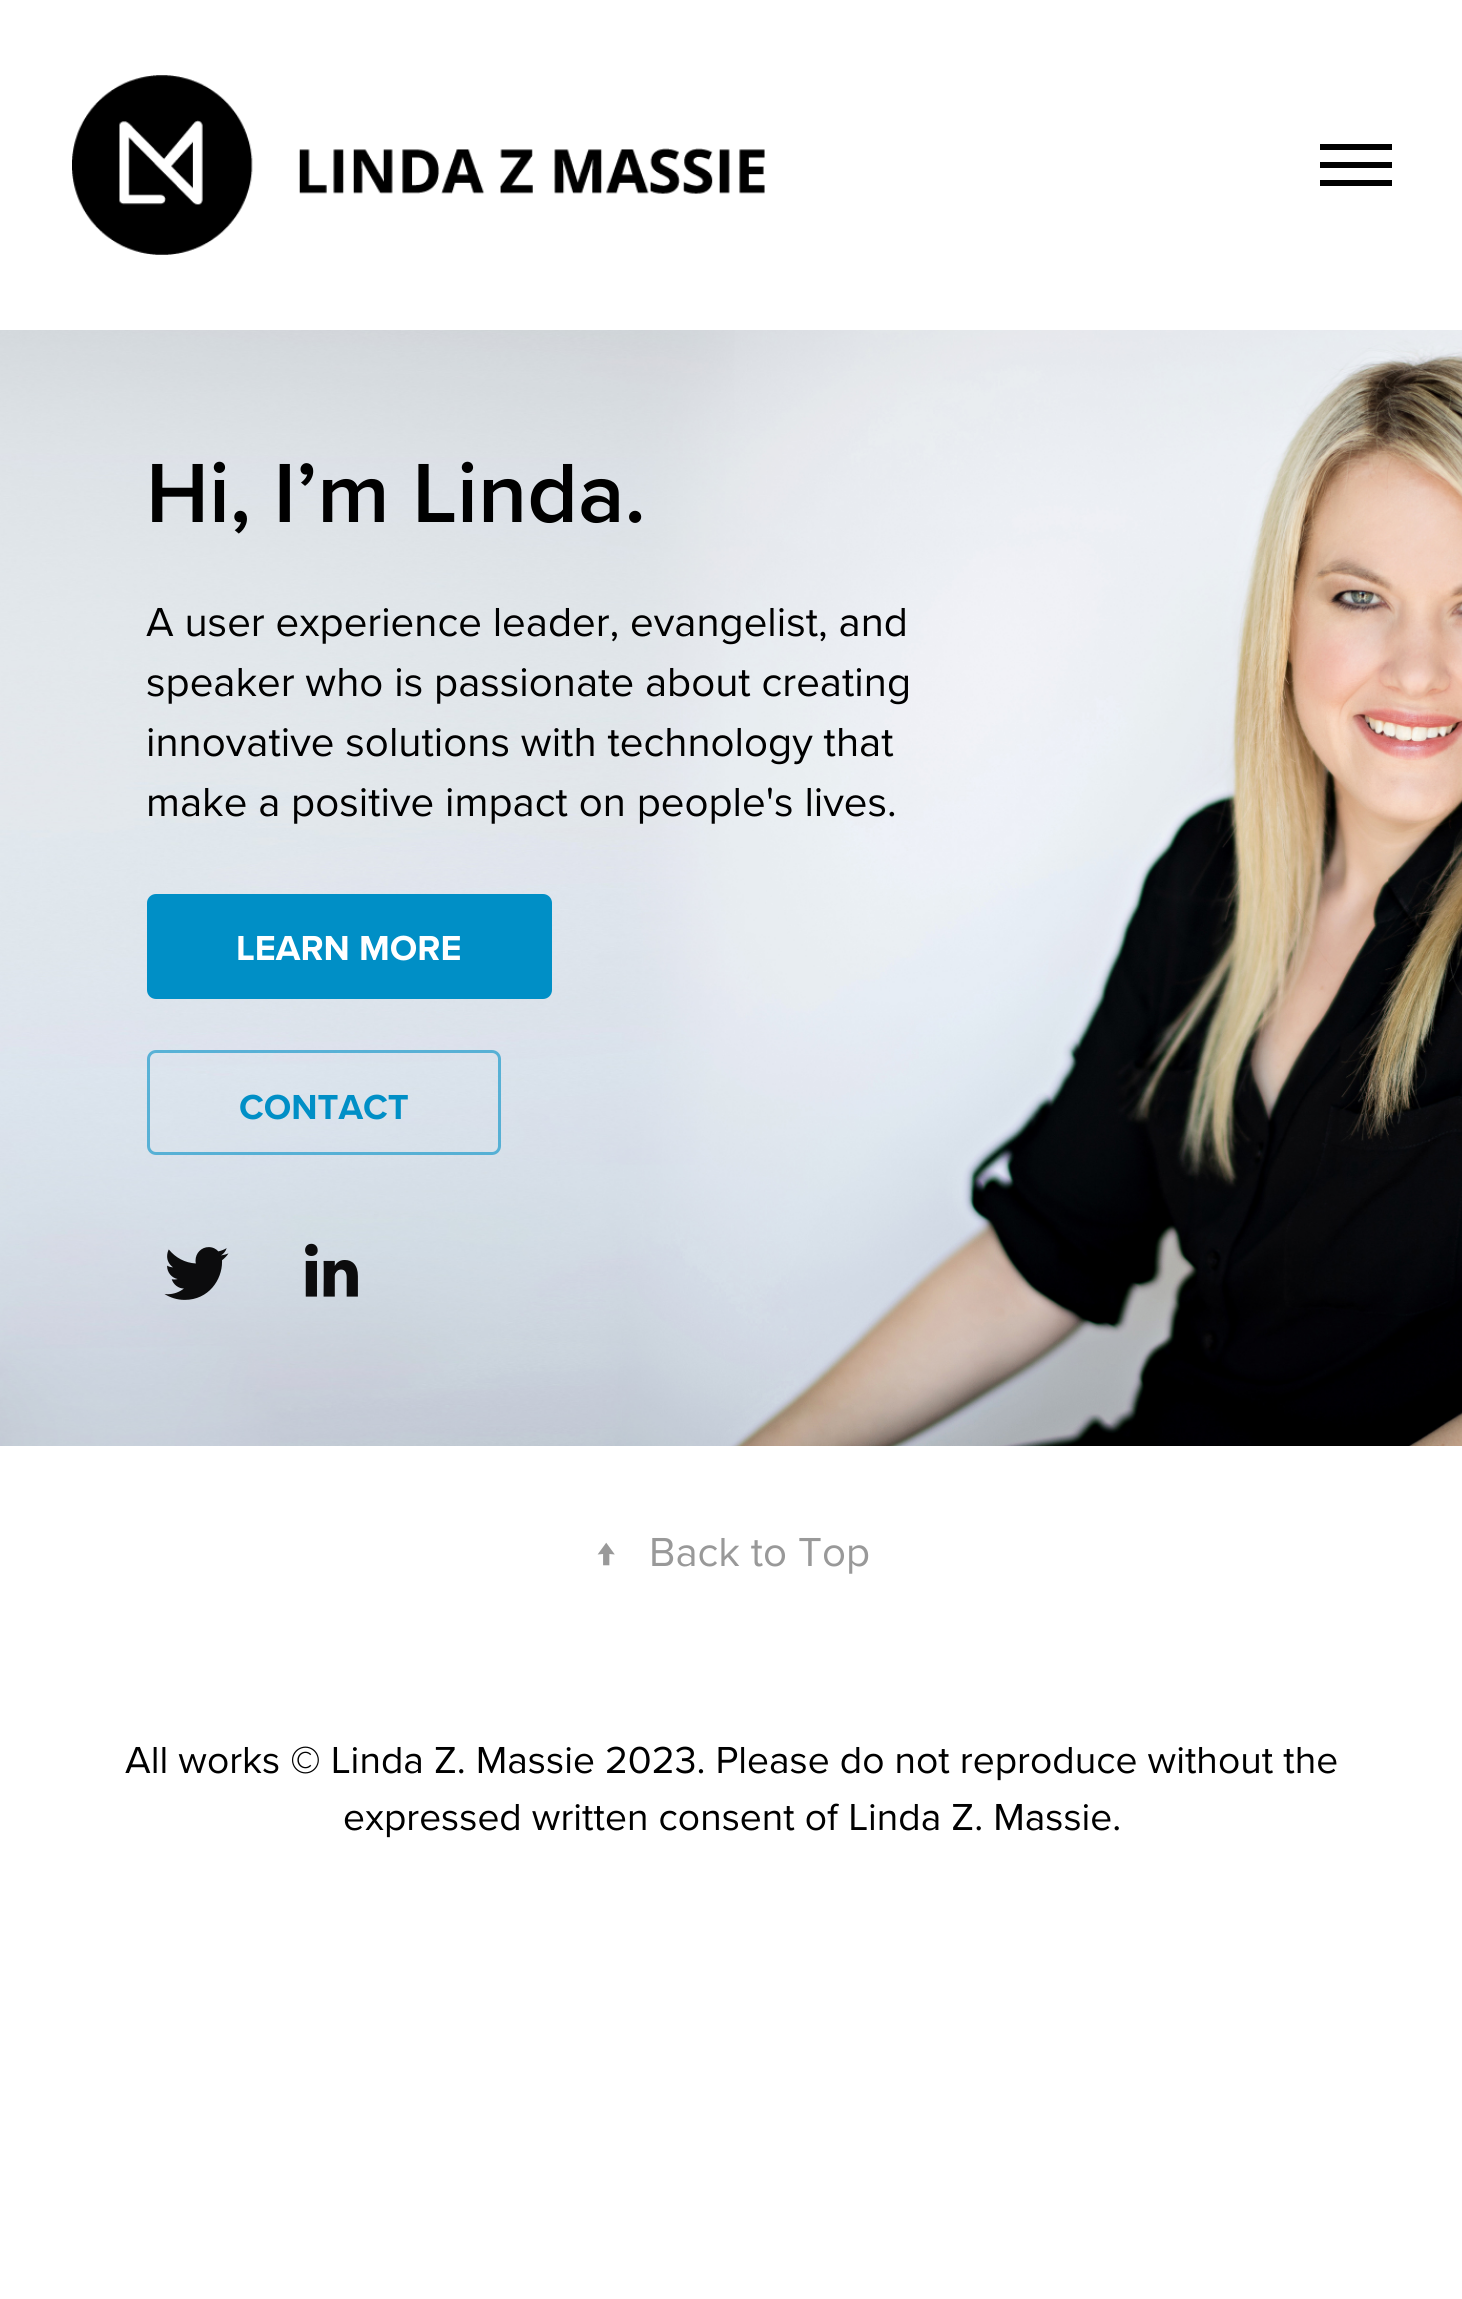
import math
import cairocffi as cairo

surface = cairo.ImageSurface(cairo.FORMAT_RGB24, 1462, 2299)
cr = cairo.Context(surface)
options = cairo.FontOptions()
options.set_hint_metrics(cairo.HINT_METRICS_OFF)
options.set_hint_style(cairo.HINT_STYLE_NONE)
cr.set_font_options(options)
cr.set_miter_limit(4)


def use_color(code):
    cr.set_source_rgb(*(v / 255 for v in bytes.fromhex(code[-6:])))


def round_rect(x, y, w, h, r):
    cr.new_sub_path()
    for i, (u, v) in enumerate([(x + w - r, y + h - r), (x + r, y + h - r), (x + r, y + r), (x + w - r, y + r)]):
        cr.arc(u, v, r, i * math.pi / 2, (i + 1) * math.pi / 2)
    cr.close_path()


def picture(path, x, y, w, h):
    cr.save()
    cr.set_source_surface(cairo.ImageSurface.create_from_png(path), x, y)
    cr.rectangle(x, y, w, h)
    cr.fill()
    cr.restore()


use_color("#ffffff")
cr.paint()
picture("img1.png", 72, 75, 693, 180)
use_color("#000000")
cr.rectangle(1320, 144, 72, 6)
cr.fill()
cr.rectangle(1320, 162, 72, 6)
cr.fill()
cr.rectangle(1320, 180, 72, 6)
cr.fill()
picture("img2.png", 0, 330, 1462, 1116)
cr.select_font_face("Proxima Nova SemiBold")
cr.set_font_size(87)
cr.move_to(146, 522)
cr.show_text("Hi, I’m Linda.")
cr.select_font_face("Proxima Nova")
cr.set_font_size(42)
cr.move_to(146, 636)
cr.show_text("A user experience leader, evangelist, and")
cr.move_to(146, 696)
cr.show_text("speaker who is passionate about creating")
cr.move_to(146, 756)
cr.show_text("innovative solutions with technology that")
cr.move_to(146, 816)
cr.show_text("make a positive impact on people's lives.")
use_color("#008fc6")
round_rect(147, 894, 405, 105, 9)
cr.fill()
cr.select_font_face("Proxima Nova", cairo.FONT_SLANT_NORMAL, cairo.FONT_WEIGHT_BOLD)
cr.set_font_size(36)
use_color("#ffffff")
cr.move_to(236, 960)
cr.show_text("LEARN MORE")
round_rect(148.5, 1051.5, 351, 102, 7.5)
cr.set_source_rgba(0, 0.561, 0.776, 0.6)
cr.set_line_width(3)
cr.stroke()
use_color("#008fc6")
cr.move_to(239, 1119)
cr.show_text("CONTACT")
picture("img3.png", 164, 1247, 65, 53)
picture("img4.png", 305, 1243, 53, 54)
cr.select_font_face("Proxima Nova")
cr.set_font_size(42)
use_color("#999999")
cr.move_to(594, 1566)
cr.show_text("↑")
cr.move_to(649, 1566)
cr.show_text("Back to Top")
cr.set_font_size(39)
use_color("#000000")
cr.move_to(125, 1773)
cr.show_text("All works © Linda Z. Massie 2023. Please do not reproduce without the")
cr.move_to(343, 1830)
cr.show_text("expressed written consent of Linda Z. Massie.")
surface.write_to_png("result.png")
